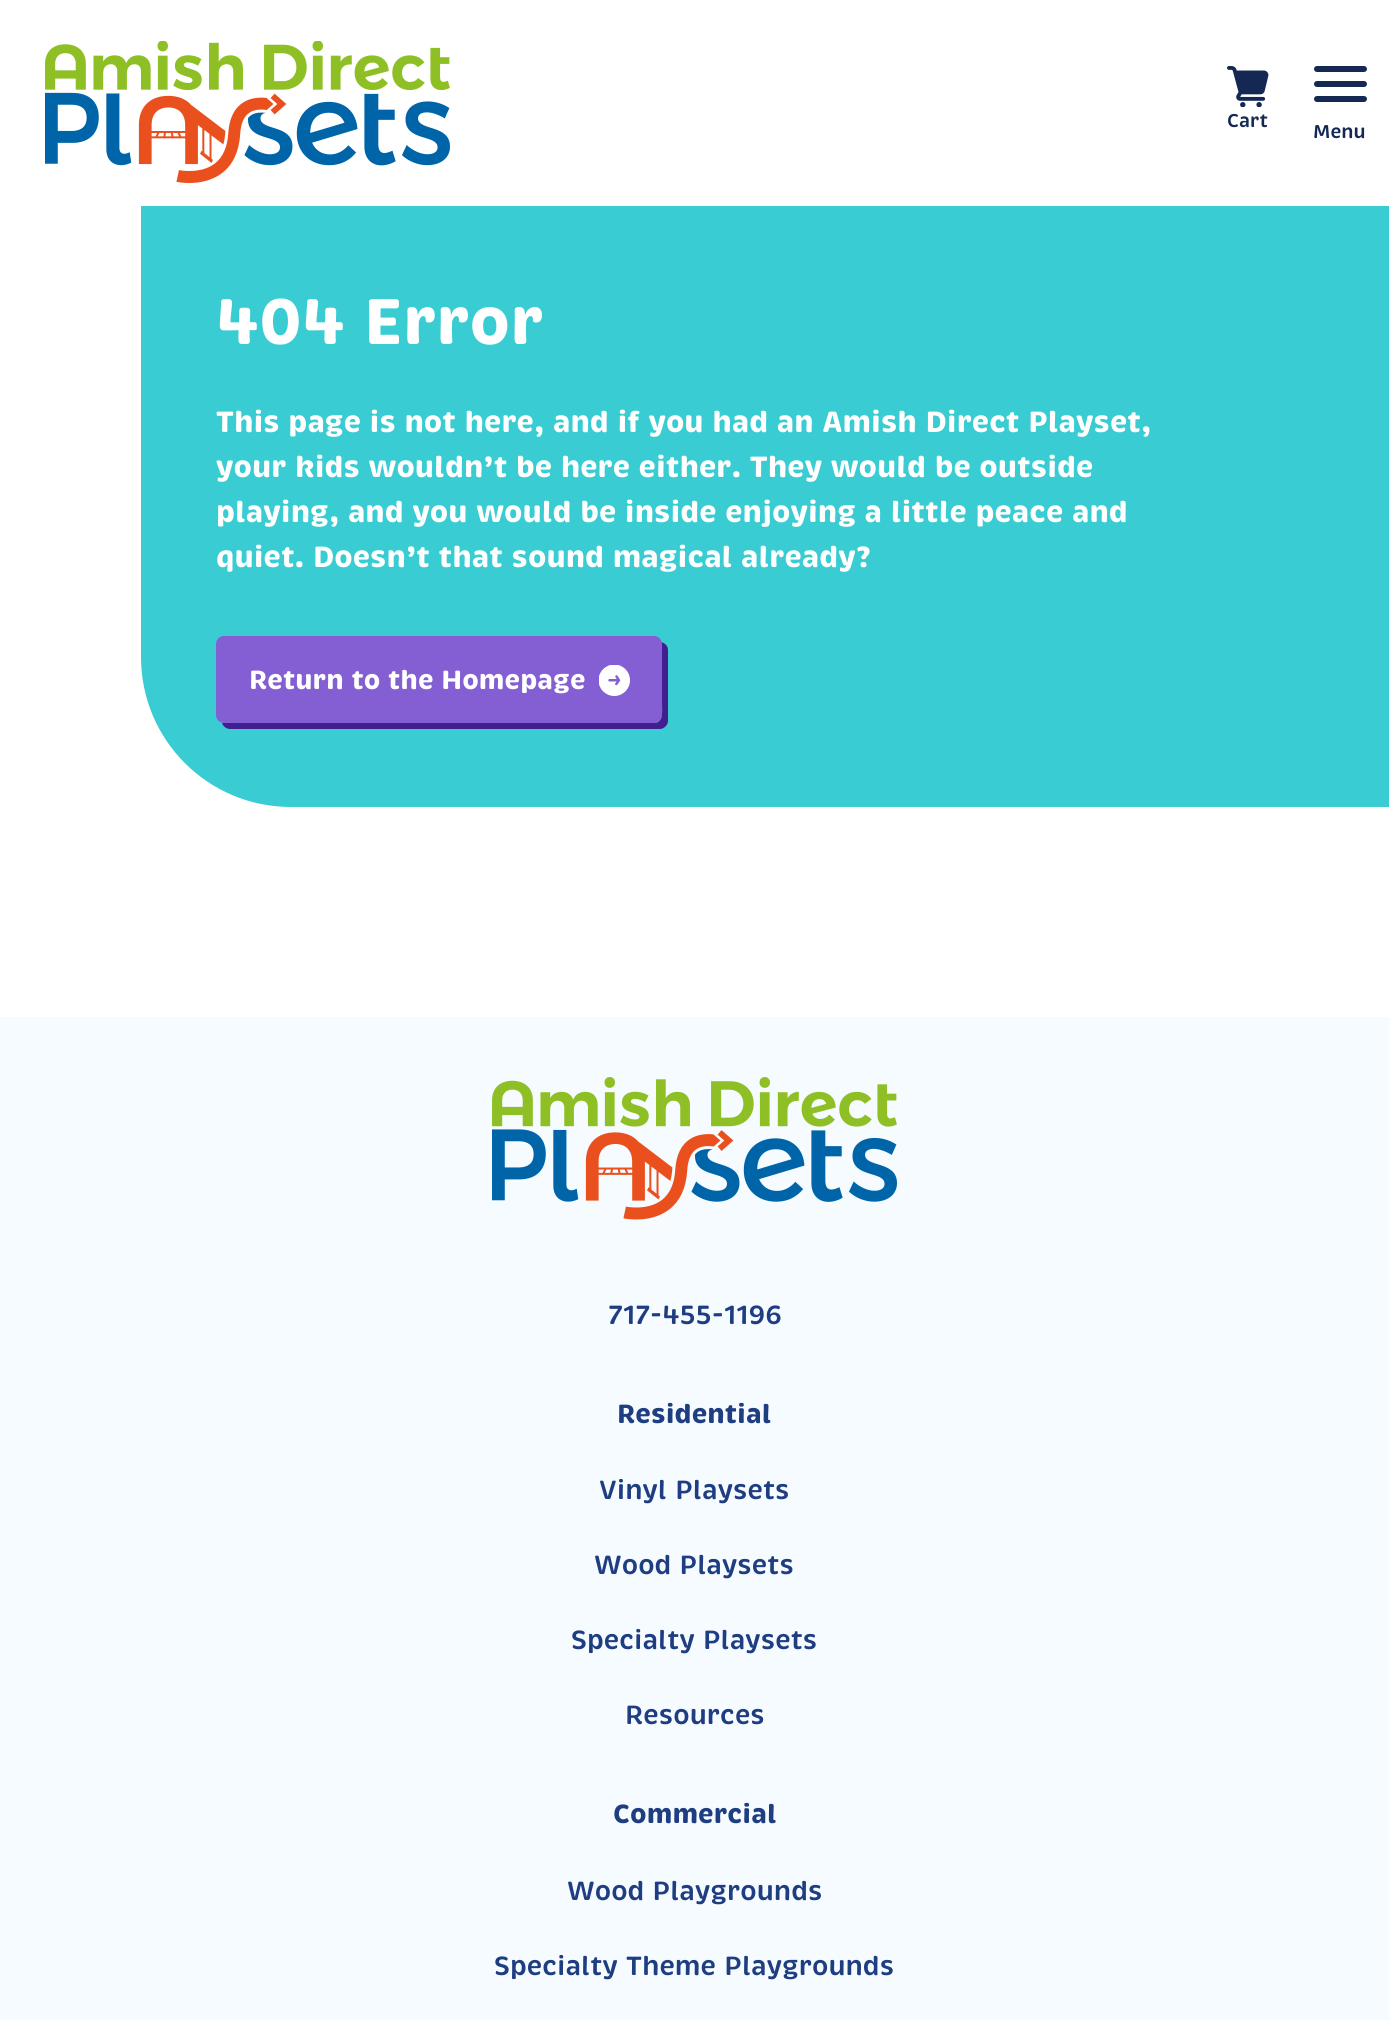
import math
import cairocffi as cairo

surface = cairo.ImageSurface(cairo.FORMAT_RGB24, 1389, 2020)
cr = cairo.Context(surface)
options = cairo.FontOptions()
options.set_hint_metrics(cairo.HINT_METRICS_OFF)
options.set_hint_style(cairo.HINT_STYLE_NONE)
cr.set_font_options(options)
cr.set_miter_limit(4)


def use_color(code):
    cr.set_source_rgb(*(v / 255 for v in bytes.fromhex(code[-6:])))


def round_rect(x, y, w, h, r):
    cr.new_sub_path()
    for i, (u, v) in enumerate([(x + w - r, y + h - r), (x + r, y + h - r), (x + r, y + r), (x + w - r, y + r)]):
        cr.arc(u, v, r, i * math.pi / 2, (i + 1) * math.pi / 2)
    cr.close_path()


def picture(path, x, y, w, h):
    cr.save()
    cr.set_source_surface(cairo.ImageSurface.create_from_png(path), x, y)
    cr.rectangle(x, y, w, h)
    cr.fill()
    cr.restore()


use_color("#ffffff")
cr.paint()
picture("img1.png", 45, 41, 405, 142)
picture("img2.png", 1227, 66, 42, 41)
cr.select_font_face("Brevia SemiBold")
cr.set_font_size(19)
use_color("#142853")
cr.move_to(1227, 127)
cr.show_text("Cart")
round_rect(1314, 66, 53, 6, 3)
cr.fill()
round_rect(1314, 81, 53, 6, 3)
cr.fill()
round_rect(1314, 96, 53, 6, 3)
cr.fill()
cr.move_to(1313, 138)
cr.show_text("Menu")
use_color("#39ccd2")
cr.new_path()
cr.move_to(141, 206)
cr.line_to(1389, 206)
cr.line_to(1389, 807)
cr.line_to(291, 807)
cr.curve_to(208, 807, 141, 740, 141, 657)
cr.close_path()
cr.fill()
cr.select_font_face("Brevia", cairo.FONT_SLANT_NORMAL, cairo.FONT_WEIGHT_BOLD)
cr.set_font_size(66)
use_color("#ffffff")
cr.move_to(216, 344)
cr.show_text("404 Error")
cr.set_font_size(30)
cr.move_to(216, 432)
cr.show_text("This page is not here, and if you had an Amish Direct Playset,")
cr.move_to(216, 477)
cr.show_text("your kids wouldn’t be here either. They would be outside")
cr.move_to(216, 522)
cr.show_text("playing, and you would be inside enjoying a little peace and")
cr.move_to(216, 567)
cr.show_text("quiet. Doesn’t that sound magical already?")
use_color("#421f91")
cr.new_path()
cr.move_to(222, 723)
cr.curve_to(223, 726, 226, 729, 230, 729)
cr.line_to(660, 729)
cr.curve_to(664, 729, 668, 725, 668, 721)
cr.line_to(668, 650)
cr.curve_to(668, 646, 665, 643, 661, 642)
cr.line_to(662, 704)
cr.curve_to(662, 709, 664, 723, 654, 723)
cr.close_path()
cr.fill()
use_color("#835fd3")
round_rect(216, 636, 446, 87, 8)
cr.fill()
cr.set_font_size(27)
use_color("#ffffff")
cr.move_to(249, 689)
cr.show_text("Return to the Homepage")
picture("img3.png", 599, 665, 31, 31)
use_color("#f5fbff")
cr.rectangle(0, 1017, 1389, 1003)
cr.fill()
picture("img4.png", 492, 1077, 405, 143)
cr.select_font_face("Brevia SemiBold")
use_color("#1f3e82")
cr.move_to(608, 1324)
cr.show_text("717-455-1196")
cr.select_font_face("Brevia", cairo.FONT_SLANT_NORMAL, cairo.FONT_WEIGHT_BOLD)
cr.move_to(617, 1423)
cr.show_text("Residential")
cr.select_font_face("Brevia SemiBold")
cr.move_to(599, 1499)
cr.show_text("Vinyl Playsets")
cr.move_to(594, 1574)
cr.show_text("Wood Playsets")
cr.move_to(571, 1649)
cr.show_text("Specialty Playsets")
cr.move_to(625, 1724)
cr.show_text("Resources")
cr.select_font_face("Brevia", cairo.FONT_SLANT_NORMAL, cairo.FONT_WEIGHT_BOLD)
cr.move_to(613, 1823)
cr.show_text("Commercial")
cr.select_font_face("Brevia SemiBold")
cr.move_to(567, 1900)
cr.show_text("Wood Playgrounds")
cr.move_to(494, 1975)
cr.show_text("Specialty Theme Playgrounds")
surface.write_to_png("result.png")
